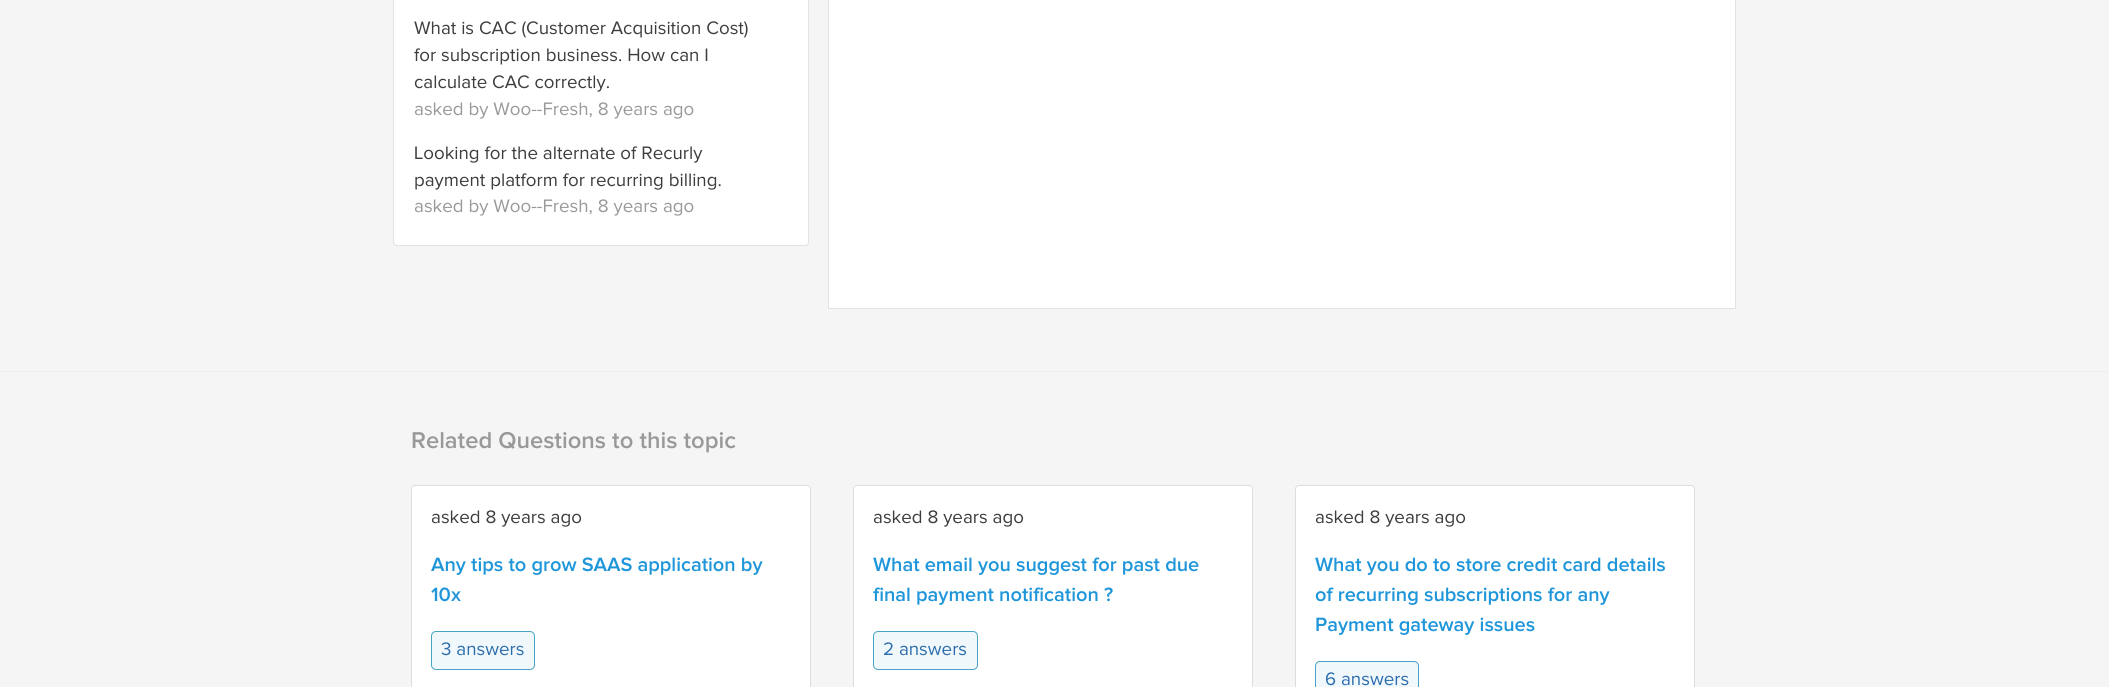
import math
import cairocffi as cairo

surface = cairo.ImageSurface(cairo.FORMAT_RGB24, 2109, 687)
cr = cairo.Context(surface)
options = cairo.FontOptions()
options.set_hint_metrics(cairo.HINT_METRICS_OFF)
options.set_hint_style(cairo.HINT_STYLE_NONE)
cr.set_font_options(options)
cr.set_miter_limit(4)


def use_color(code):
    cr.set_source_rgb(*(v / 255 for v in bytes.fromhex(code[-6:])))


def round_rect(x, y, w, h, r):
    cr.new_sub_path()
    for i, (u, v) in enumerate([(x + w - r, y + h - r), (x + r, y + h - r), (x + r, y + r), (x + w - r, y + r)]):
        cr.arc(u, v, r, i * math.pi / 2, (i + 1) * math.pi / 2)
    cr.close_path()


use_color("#f5f5f5")
cr.paint()
use_color("#ffffff")
round_rect(393.5, -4.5, 415, 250, 3.5)
cr.fill_preserve()
use_color("#e2e2e2")
cr.set_line_width(1)
cr.stroke()
cr.select_font_face("Proxima Nova")
cr.set_font_size(18.75)
use_color("#3d3d3d")
cr.move_to(414, 34)
cr.show_text("What is CAC (Customer Acquisition Cost)")
cr.move_to(414, 61)
cr.show_text("for subscription business. How can I")
cr.move_to(414, 88)
cr.show_text("calculate CAC correctly.")
use_color("#999999")
cr.move_to(414, 115)
cr.show_text("asked by Woo--Fresh, 8 years ago")
use_color("#3d3d3d")
cr.move_to(414, 159)
cr.show_text("Looking for the alternate of Recurly")
cr.move_to(414, 186)
cr.show_text("payment platform for recurring billing.")
use_color("#999999")
cr.move_to(414, 212)
cr.show_text("asked by Woo--Fresh, 8 years ago")
use_color("#ffffff")
cr.rectangle(828.5, -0.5, 907, 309)
cr.fill_preserve()
use_color("#e2e2e2")
cr.stroke()
use_color("#eeeeee")
cr.rectangle(0, 371, 2109, 1)
cr.fill()
cr.select_font_face("Proxima Nova SemiBold")
cr.set_font_size(23.75)
use_color("#999999")
cr.move_to(411, 448)
cr.show_text("Related Questions to this topic")
use_color("#ffffff")
round_rect(411.5, 485.5, 399, 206, 3.5)
cr.fill_preserve()
use_color("#dddddd")
cr.stroke()
cr.select_font_face("Proxima Nova")
cr.set_font_size(18.75)
use_color("#3d3d3d")
cr.move_to(431, 523)
cr.show_text("asked 8 years ago")
cr.select_font_face("Proxima Nova SemiBold")
cr.set_font_size(20)
use_color("#1f96da")
cr.move_to(431, 571)
cr.show_text("Any tips to grow SAAS application by")
cr.move_to(431, 601)
cr.show_text("10x")
use_color("#f1f8fb")
round_rect(431.5, 631.5, 103, 38, 4.5)
cr.fill_preserve()
use_color("#48a3c6")
cr.stroke()
cr.select_font_face("Proxima Nova")
cr.set_font_size(18.75)
use_color("#2b6dad")
cr.move_to(441, 655)
cr.show_text("3 answers")
use_color("#ffffff")
round_rect(853.5, 485.5, 399, 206, 3.5)
cr.fill_preserve()
use_color("#dddddd")
cr.stroke()
use_color("#3d3d3d")
cr.move_to(873, 523)
cr.show_text("asked 8 years ago")
cr.select_font_face("Proxima Nova SemiBold")
cr.set_font_size(20)
use_color("#1f96da")
cr.move_to(873, 571)
cr.show_text("What email you suggest for past due")
cr.move_to(873, 601)
cr.show_text("final payment notification ?")
use_color("#f1f8fb")
round_rect(873.5, 631.5, 104, 38, 4.5)
cr.fill_preserve()
use_color("#48a3c6")
cr.stroke()
cr.select_font_face("Proxima Nova")
cr.set_font_size(18.75)
use_color("#2b6dad")
cr.move_to(883, 655)
cr.show_text("2 answers")
use_color("#ffffff")
round_rect(1295.5, 485.5, 399, 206, 3.5)
cr.fill_preserve()
use_color("#dddddd")
cr.stroke()
use_color("#3d3d3d")
cr.move_to(1315, 523)
cr.show_text("asked 8 years ago")
cr.select_font_face("Proxima Nova SemiBold")
cr.set_font_size(20)
use_color("#1f96da")
cr.move_to(1315, 571)
cr.show_text("What you do to store credit card details")
cr.move_to(1315, 601)
cr.show_text("of recurring subscriptions for any")
cr.move_to(1315, 631)
cr.show_text("Payment gateway issues")
use_color("#f1f8fb")
round_rect(1315.5, 661.5, 103, 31, 4.5)
cr.fill_preserve()
use_color("#48a3c6")
cr.stroke()
cr.select_font_face("Proxima Nova")
cr.set_font_size(18.75)
use_color("#2b6dad")
cr.move_to(1325, 685)
cr.show_text("6 answers")
surface.write_to_png("result.png")
